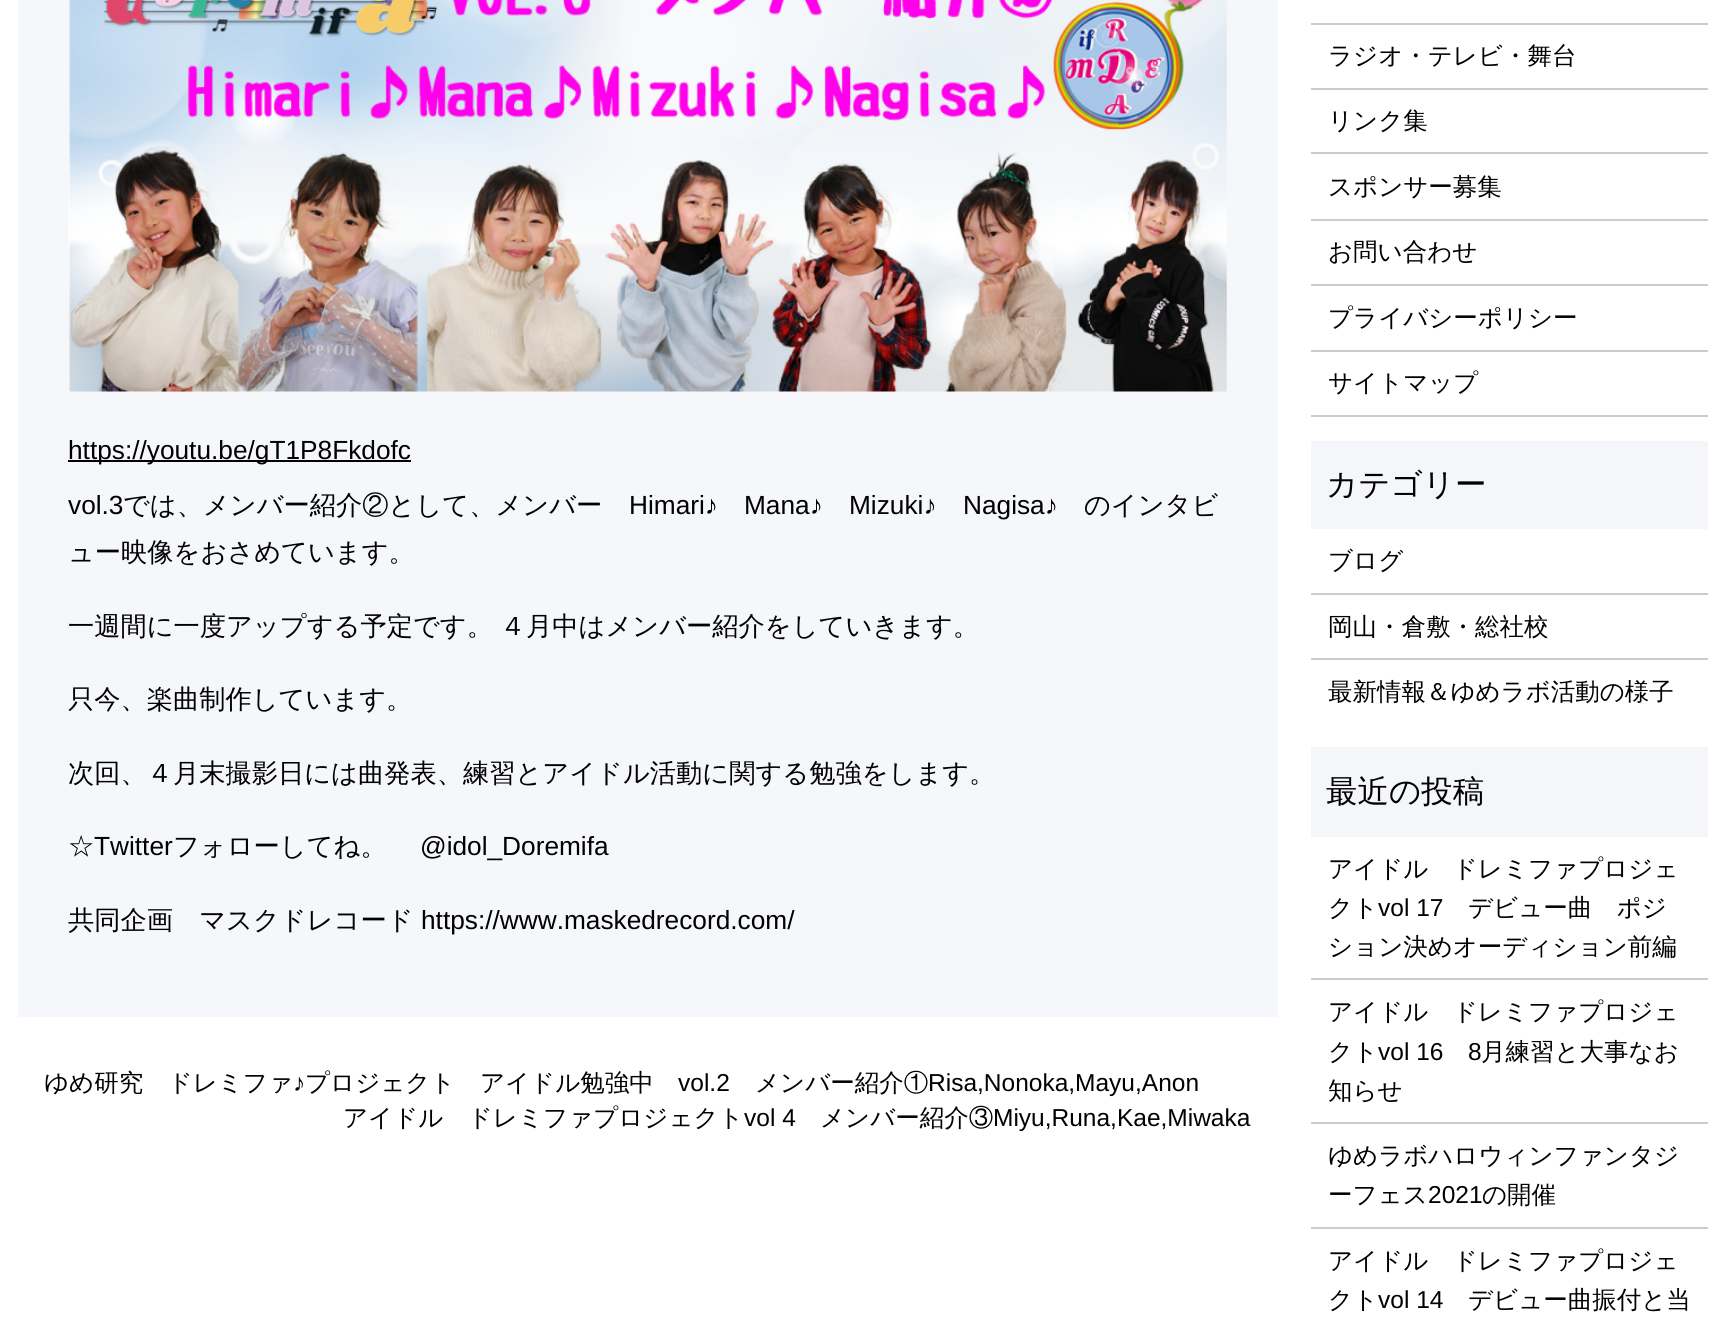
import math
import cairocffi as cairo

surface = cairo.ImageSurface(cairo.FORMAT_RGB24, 1725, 1342)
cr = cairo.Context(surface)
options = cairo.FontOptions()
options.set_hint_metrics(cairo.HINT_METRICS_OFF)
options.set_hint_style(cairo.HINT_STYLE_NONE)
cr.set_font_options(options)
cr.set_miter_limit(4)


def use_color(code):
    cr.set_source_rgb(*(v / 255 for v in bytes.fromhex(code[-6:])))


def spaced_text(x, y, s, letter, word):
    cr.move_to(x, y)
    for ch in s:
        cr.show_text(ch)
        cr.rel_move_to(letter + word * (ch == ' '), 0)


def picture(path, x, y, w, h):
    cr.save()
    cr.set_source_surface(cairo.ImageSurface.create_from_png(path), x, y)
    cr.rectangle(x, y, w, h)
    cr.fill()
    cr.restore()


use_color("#ffffff")
cr.paint()
use_color("#f5f7fa")
cr.rectangle(18, 0, 1260, 1017)
cr.fill()
picture("img1.png", 68, 0, 1159, 392)
use_color("#000000")
cr.rectangle(68, 460, 343, 2)
cr.fill()
cr.select_font_face("Liberation Sans")
cr.set_font_size(26.25)
cr.move_to(68, 459)
cr.show_text("https://youtu.be/gT1P8Fkdofc")
cr.move_to(68, 514)
cr.show_text("vol.3")
cr.select_font_face("WenQuanYi Zen Hei Medium")
cr.move_to(123, 514)
cr.show_text("では、メンバー紹介②として、メンバー")
cr.select_font_face("Liberation Sans")
cr.move_to(629, 514)
cr.show_text("Himari♪")
cr.move_to(744, 514)
cr.show_text("Mana♪")
cr.move_to(849, 514)
cr.show_text("Mizuki♪")
cr.move_to(963, 514)
cr.show_text("Nagisa♪")
cr.select_font_face("WenQuanYi Zen Hei Medium")
cr.move_to(1084, 514)
cr.show_text("のインタビ")
cr.move_to(68, 561)
cr.show_text("ュー映像をおさめています。")
spaced_text(68, 635, "一週間に一度アップする予定です。 ４月中はメンバー紹介をしていきます。", 0, -1)
cr.move_to(68, 708)
cr.show_text("只今、楽曲制作しています。")
cr.move_to(68, 782)
cr.show_text("次回、４月末撮影日には曲発表、練習とアイドル活動に関する勉強をします。")
cr.move_to(68, 855)
cr.show_text("☆")
cr.select_font_face("Liberation Sans")
cr.move_to(94, 855)
cr.show_text("Twitter")
cr.select_font_face("WenQuanYi Zen Hei Medium")
cr.move_to(173, 855)
cr.show_text("フォローしてね。")
cr.select_font_face("Liberation Sans")
cr.move_to(420, 855)
cr.show_text("@idol_Doremifa")
cr.select_font_face("WenQuanYi Zen Hei Medium")
cr.move_to(68, 929)
cr.show_text("共同企画　マスクドレコード")
cr.select_font_face("Liberation Sans")
cr.move_to(421, 929)
cr.show_text("https://www.maskedrecord.com/")
cr.select_font_face("WenQuanYi Zen Hei Medium")
cr.set_font_size(24.5)
cr.move_to(44, 1091)
cr.show_text("ゆめ研究　ドレミファ")
cr.select_font_face("Liberation Sans")
cr.move_to(293, 1091)
cr.show_text("♪")
cr.select_font_face("WenQuanYi Zen Hei Medium")
cr.move_to(305, 1091)
cr.show_text("プロジェクト　アイドル勉強中")
cr.select_font_face("Liberation Sans")
cr.move_to(678, 1091)
cr.show_text("vol.2")
cr.select_font_face("WenQuanYi Zen Hei Medium")
cr.move_to(755, 1091)
cr.show_text("メンバー紹介①")
cr.select_font_face("Liberation Sans")
cr.move_to(928, 1091)
cr.show_text("Risa,Nonoka,Mayu,Anon")
cr.select_font_face("WenQuanYi Zen Hei Medium")
cr.move_to(343, 1126)
cr.show_text("アイドル　ドレミファプロジェクト")
cr.select_font_face("Liberation Sans")
cr.move_to(744, 1126)
cr.show_text("vol 4")
cr.select_font_face("WenQuanYi Zen Hei Medium")
cr.move_to(820, 1126)
cr.show_text("メンバー紹介③")
cr.select_font_face("Liberation Sans")
cr.move_to(993, 1126)
cr.show_text("Miyu,Runa,Kae,Miwaka")
use_color("#cccccc")
cr.rectangle(1311, 23, 397, 2)
cr.fill()
cr.rectangle(1311, 88, 397, 2)
cr.fill()
cr.select_font_face("WenQuanYi Zen Hei Medium")
use_color("#000000")
cr.move_to(1328, 64)
cr.show_text("ラジオ・テレビ・舞台")
use_color("#cccccc")
cr.rectangle(1311, 152, 397, 2)
cr.fill()
use_color("#000000")
cr.move_to(1328, 129)
cr.show_text("リンク集")
use_color("#cccccc")
cr.rectangle(1311, 219, 397, 2)
cr.fill()
use_color("#000000")
cr.move_to(1328, 195)
cr.show_text("スポンサー募集")
use_color("#cccccc")
cr.rectangle(1311, 284, 397, 2)
cr.fill()
use_color("#000000")
cr.move_to(1328, 260)
cr.show_text("お問い合わせ")
use_color("#cccccc")
cr.rectangle(1311, 350, 397, 2)
cr.fill()
use_color("#000000")
cr.move_to(1328, 326)
cr.show_text("プライバシーポリシー")
use_color("#cccccc")
cr.rectangle(1311, 415, 397, 2)
cr.fill()
use_color("#000000")
cr.move_to(1328, 391)
cr.show_text("サイトマップ")
use_color("#f4f6f9")
cr.rectangle(1311, 441, 397, 88)
cr.fill()
cr.set_font_size(31.5)
use_color("#000000")
cr.move_to(1326, 495)
cr.show_text("カテゴリー")
use_color("#cccccc")
cr.rectangle(1311, 593, 397, 2)
cr.fill()
cr.set_font_size(24.5)
use_color("#000000")
cr.move_to(1328, 569)
cr.show_text("ブログ")
use_color("#cccccc")
cr.rectangle(1311, 658, 397, 2)
cr.fill()
use_color("#000000")
cr.move_to(1328, 635)
cr.show_text("岡山・倉敷・総社校")
cr.move_to(1328, 700)
cr.show_text("最新情報＆ゆめラボ活動の様子")
use_color("#f4f6f9")
cr.rectangle(1311, 747, 397, 90)
cr.fill()
cr.set_font_size(31.5)
use_color("#000000")
cr.move_to(1326, 802)
cr.show_text("最近の投稿")
use_color("#cccccc")
cr.rectangle(1311, 978, 397, 2)
cr.fill()
cr.set_font_size(24.5)
use_color("#000000")
cr.move_to(1328, 877)
cr.show_text("アイドル　ドレミファプロジェ")
cr.move_to(1328, 916)
cr.show_text("クト")
cr.select_font_face("Liberation Sans")
cr.move_to(1378, 916)
cr.show_text("vol 17")
cr.select_font_face("WenQuanYi Zen Hei Medium")
cr.move_to(1468, 916)
cr.show_text("デビュー曲　ポジ")
cr.move_to(1328, 955)
cr.show_text("ション決めオーディション前編")
use_color("#cccccc")
cr.rectangle(1311, 1122, 397, 2)
cr.fill()
use_color("#000000")
cr.move_to(1328, 1020)
cr.show_text("アイドル　ドレミファプロジェ")
cr.move_to(1328, 1060)
cr.show_text("クト")
cr.select_font_face("Liberation Sans")
cr.move_to(1378, 1060)
cr.show_text("vol 16")
cr.move_to(1468, 1060)
cr.show_text("8")
cr.select_font_face("WenQuanYi Zen Hei Medium")
cr.move_to(1481, 1060)
cr.show_text("月練習と大事なお")
cr.move_to(1328, 1099)
cr.show_text("知らせ")
use_color("#cccccc")
cr.rectangle(1311, 1227, 397, 2)
cr.fill()
use_color("#000000")
cr.move_to(1328, 1164)
cr.show_text("ゆめラボハロウィンファンタジ")
cr.move_to(1328, 1203)
cr.show_text("ーフェス")
cr.select_font_face("Liberation Sans")
cr.move_to(1428, 1203)
cr.show_text("2021")
cr.select_font_face("WenQuanYi Zen Hei Medium")
cr.move_to(1482, 1203)
cr.show_text("の開催")
cr.move_to(1328, 1269)
cr.show_text("アイドル　ドレミファプロジェ")
cr.move_to(1328, 1308)
cr.show_text("クト")
cr.select_font_face("Liberation Sans")
cr.move_to(1378, 1308)
cr.show_text("vol 14")
cr.select_font_face("WenQuanYi Zen Hei Medium")
cr.move_to(1468, 1308)
cr.show_text("デビュー曲振付と当")
surface.write_to_png("result.png")
